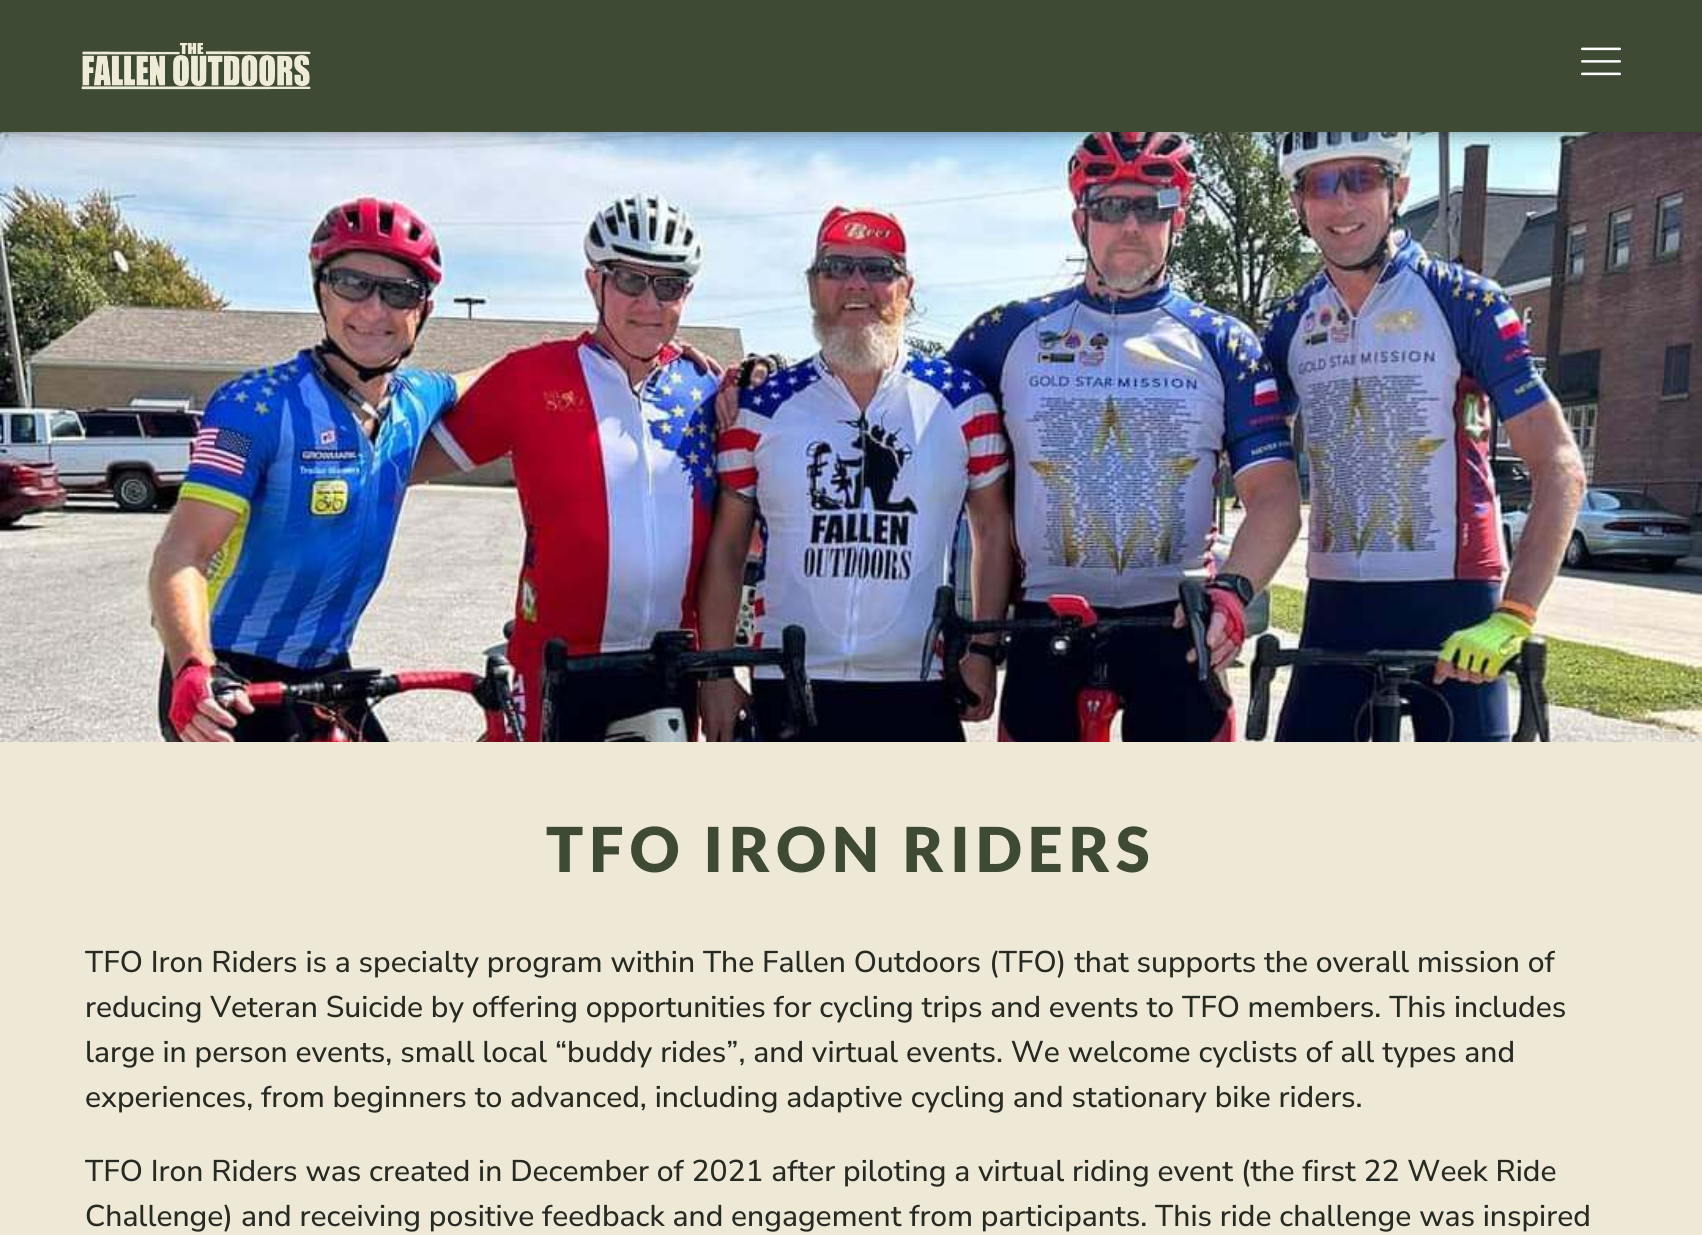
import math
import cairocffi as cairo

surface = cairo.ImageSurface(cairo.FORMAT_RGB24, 1702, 1235)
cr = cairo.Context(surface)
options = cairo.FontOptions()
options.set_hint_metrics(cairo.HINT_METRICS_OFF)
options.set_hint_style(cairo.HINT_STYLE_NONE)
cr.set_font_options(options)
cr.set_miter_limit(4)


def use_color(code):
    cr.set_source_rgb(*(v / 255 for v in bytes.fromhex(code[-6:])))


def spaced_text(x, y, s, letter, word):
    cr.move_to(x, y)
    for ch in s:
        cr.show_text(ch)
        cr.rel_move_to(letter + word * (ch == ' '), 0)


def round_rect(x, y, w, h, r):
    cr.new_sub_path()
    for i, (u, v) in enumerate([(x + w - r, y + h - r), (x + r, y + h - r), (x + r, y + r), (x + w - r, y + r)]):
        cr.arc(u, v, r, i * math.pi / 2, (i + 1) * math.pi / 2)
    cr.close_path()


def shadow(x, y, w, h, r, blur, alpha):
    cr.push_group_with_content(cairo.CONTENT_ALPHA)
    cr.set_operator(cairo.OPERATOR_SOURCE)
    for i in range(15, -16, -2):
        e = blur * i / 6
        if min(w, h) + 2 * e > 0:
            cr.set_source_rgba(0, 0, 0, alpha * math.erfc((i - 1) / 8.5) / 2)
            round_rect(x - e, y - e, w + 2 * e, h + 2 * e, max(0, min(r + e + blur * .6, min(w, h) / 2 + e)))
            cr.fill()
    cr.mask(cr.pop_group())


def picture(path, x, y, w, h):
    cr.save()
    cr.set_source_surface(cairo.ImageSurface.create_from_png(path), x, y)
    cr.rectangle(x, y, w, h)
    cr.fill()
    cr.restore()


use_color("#ffffff")
cr.paint()
picture("img3.png", 0, 132, 1702, 610)
use_color("#000000")
shadow(0, 0, 1702, 132, 0, 10, 0.42)
use_color("#3f4a35")
cr.rectangle(0, 0, 1702, 132)
cr.fill()
picture("img1.png", 81, 42, 230, 48)
picture("img2.png", 1581, 47, 40, 29)
use_color("#eee9d6")
cr.rectangle(0, 742, 1702, 493)
cr.fill()
cr.select_font_face("Lato Black")
cr.set_font_size(62)
use_color("#3f4a35")
spaced_text(546, 872, "TFO IRON RIDERS", 6, 0)
cr.select_font_face("Nunito Sans Medium")
cr.set_font_size(30)
use_color("#272a23")
cr.move_to(85, 972)
cr.show_text("TFO Iron Riders is a specialty program within The Fallen Outdoors (TFO) that supports the overall mission of")
cr.move_to(85, 1017)
cr.show_text("reducing Veteran Suicide by offering opportunities for cycling trips and events to TFO members. This includes")
cr.move_to(85, 1062)
cr.show_text("large in person events, small local “buddy rides”, and virtual events. We welcome cyclists of all types and")
cr.move_to(85, 1107)
cr.show_text("experiences, from beginners to advanced, including adaptive cycling and stationary bike riders.")
cr.move_to(85, 1181)
cr.show_text("TFO Iron Riders was created in December of 2021 after piloting a virtual riding event (the first 22 Week Ride")
cr.move_to(85, 1226)
cr.show_text("Challenge) and receiving positive feedback and engagement from participants. This ride challenge was inspired")
surface.write_to_png("result.png")
